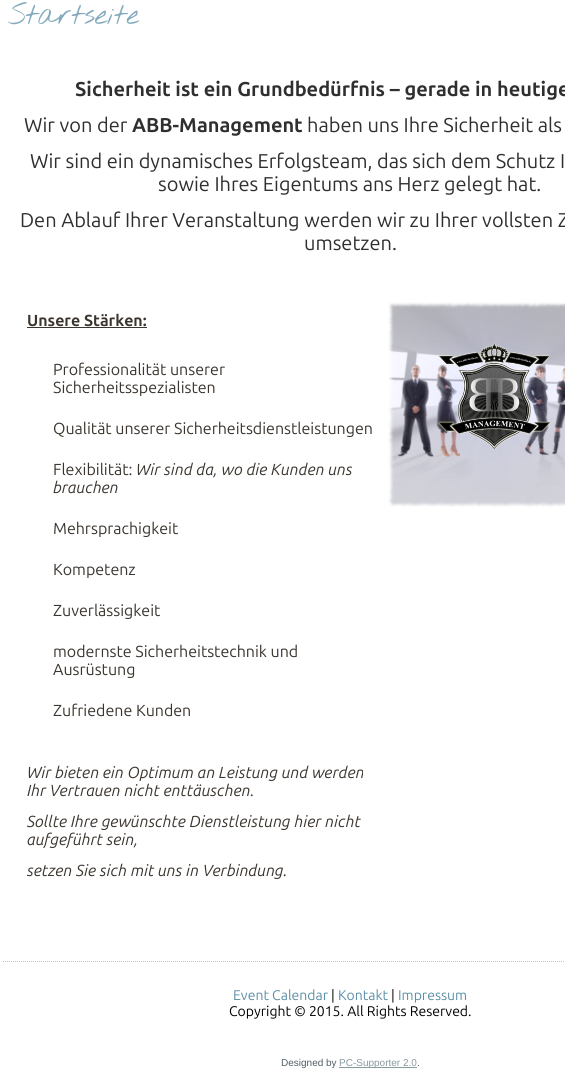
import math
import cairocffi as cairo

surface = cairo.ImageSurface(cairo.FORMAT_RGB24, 565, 1078)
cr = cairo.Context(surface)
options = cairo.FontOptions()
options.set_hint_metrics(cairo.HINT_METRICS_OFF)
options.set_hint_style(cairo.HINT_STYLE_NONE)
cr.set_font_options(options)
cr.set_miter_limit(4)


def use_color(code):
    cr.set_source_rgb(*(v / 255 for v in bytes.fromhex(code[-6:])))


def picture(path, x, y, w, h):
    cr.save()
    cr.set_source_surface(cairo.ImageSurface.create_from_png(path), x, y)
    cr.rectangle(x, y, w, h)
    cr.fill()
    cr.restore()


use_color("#ffffff")
cr.paint()
cr.select_font_face("Nothing You Could Do")
cr.set_font_size(29)
use_color("#84abbd")
cr.move_to(8, 24)
cr.show_text("Startseite")
cr.select_font_face("Ubuntu", cairo.FONT_SLANT_NORMAL, cairo.FONT_WEIGHT_BOLD)
cr.set_font_size(20)
use_color("#2f2f2f")
cr.move_to(75, 96)
cr.show_text("Sicherheit ist ein Grundbedürfnis – gerade in heutige")
cr.select_font_face("Ubuntu")
cr.move_to(24, 132)
cr.show_text("Wir von der")
cr.select_font_face("Ubuntu", cairo.FONT_SLANT_NORMAL, cairo.FONT_WEIGHT_BOLD)
cr.move_to(132, 132)
cr.show_text("ABB-Management")
cr.select_font_face("Ubuntu")
cr.move_to(307, 132)
cr.show_text("haben uns Ihre Sicherheit als")
cr.move_to(30, 168)
cr.show_text("Wir sind ein dynamisches Erfolgsteam, das sich dem Schutz I")
cr.move_to(158, 191)
cr.show_text("sowie Ihres Eigentums ans Herz gelegt hat.")
cr.move_to(20, 227)
cr.show_text("Den Ablauf Ihrer Veranstaltung werden wir zu Ihrer vollsten Z")
cr.move_to(304, 250)
cr.show_text("umsetzen.")
cr.select_font_face("Ubuntu", cairo.FONT_SLANT_NORMAL, cairo.FONT_WEIGHT_BOLD)
cr.set_font_size(16)
use_color("#3b352f")
cr.move_to(27, 326)
cr.show_text("Unsere Stärken:")
cr.rectangle(27, 327, 120, 1)
cr.fill()
cr.select_font_face("Ubuntu")
cr.move_to(53, 375)
cr.show_text("Professionalität unserer")
cr.move_to(53, 393)
cr.show_text("Sicherheitsspezialisten")
cr.move_to(53, 434)
cr.show_text("Qualität unserer Sicherheitsdienstleistungen")
cr.move_to(53, 475)
cr.show_text("Flexibilität:")
cr.select_font_face("Ubuntu", cairo.FONT_SLANT_ITALIC)
cr.move_to(136, 475)
cr.show_text("Wir sind da, wo die Kunden uns")
cr.move_to(53, 493)
cr.show_text("brauchen")
cr.select_font_face("Ubuntu")
cr.move_to(53, 534)
cr.show_text("Mehrsprachigkeit")
cr.move_to(53, 575)
cr.show_text("Kompetenz")
cr.move_to(53, 616)
cr.show_text("Zuverlässigkeit")
cr.move_to(53, 657)
cr.show_text("modernste Sicherheitstechnik und")
cr.move_to(53, 675)
cr.show_text("Ausrüstung")
cr.move_to(53, 716)
cr.show_text("Zufriedene Kunden")
cr.select_font_face("Ubuntu", cairo.FONT_SLANT_ITALIC)
cr.move_to(27, 778)
cr.show_text("Wir bieten ein Optimum an Leistung und werden")
cr.move_to(27, 796)
cr.show_text("Ihr Vertrauen nicht enttäuschen.")
cr.move_to(27, 827)
cr.show_text("Sollte Ihre gewünschte Dienstleistung hier nicht")
cr.move_to(27, 845)
cr.show_text("aufgeführt sein,")
cr.move_to(27, 876)
cr.show_text("setzen Sie sich mit uns in Verbindung.")
picture("img1.png", 388, 302, 177, 205)
cr.new_path()
cr.move_to(3, 961.5)
cr.line_to(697, 961.5)
use_color("#bec7cb")
cr.set_line_width(1)
cr.set_dash([1, 1])
cr.stroke()
cr.select_font_face("Ubuntu")
cr.set_font_size(14)
use_color("#598ea6")
cr.move_to(233, 1000)
cr.show_text("Event Calendar")
use_color("#000000")
cr.move_to(331, 1000)
cr.show_text("|")
use_color("#598ea6")
cr.move_to(338, 1000)
cr.show_text("Kontakt")
use_color("#000000")
cr.move_to(391, 1000)
cr.show_text("|")
use_color("#598ea6")
cr.move_to(398, 1000)
cr.show_text("Impressum")
use_color("#000000")
cr.move_to(229, 1016)
cr.show_text("Copyright © 2015. All Rights Reserved.")
cr.select_font_face("Liberation Sans")
cr.set_font_size(10)
use_color("#4f5e63")
cr.move_to(281, 1066)
cr.show_text("Designed by")
use_color("#8899a0")
cr.rectangle(339, 1067, 78, 1)
cr.fill()
cr.move_to(339, 1066)
cr.show_text("PC-Supporter 2.0")
use_color("#4f5e63")
cr.move_to(417, 1066)
cr.show_text(".")
surface.write_to_png("result.png")
